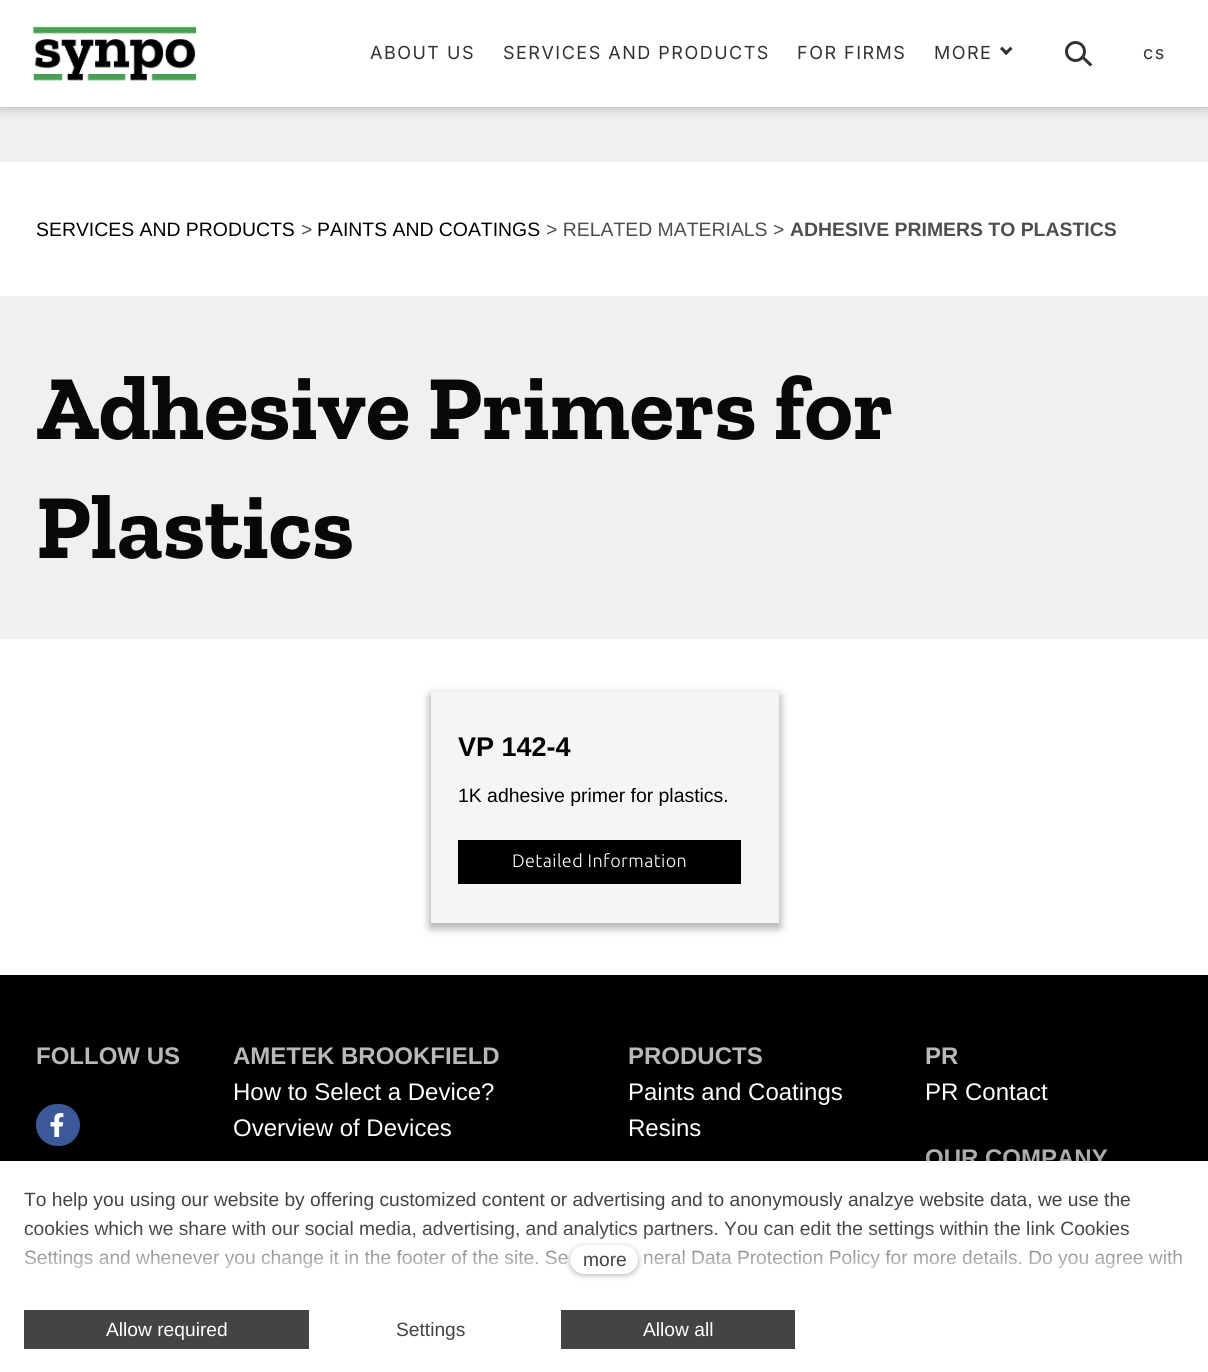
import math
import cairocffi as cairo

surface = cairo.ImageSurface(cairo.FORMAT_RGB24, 1208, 1372)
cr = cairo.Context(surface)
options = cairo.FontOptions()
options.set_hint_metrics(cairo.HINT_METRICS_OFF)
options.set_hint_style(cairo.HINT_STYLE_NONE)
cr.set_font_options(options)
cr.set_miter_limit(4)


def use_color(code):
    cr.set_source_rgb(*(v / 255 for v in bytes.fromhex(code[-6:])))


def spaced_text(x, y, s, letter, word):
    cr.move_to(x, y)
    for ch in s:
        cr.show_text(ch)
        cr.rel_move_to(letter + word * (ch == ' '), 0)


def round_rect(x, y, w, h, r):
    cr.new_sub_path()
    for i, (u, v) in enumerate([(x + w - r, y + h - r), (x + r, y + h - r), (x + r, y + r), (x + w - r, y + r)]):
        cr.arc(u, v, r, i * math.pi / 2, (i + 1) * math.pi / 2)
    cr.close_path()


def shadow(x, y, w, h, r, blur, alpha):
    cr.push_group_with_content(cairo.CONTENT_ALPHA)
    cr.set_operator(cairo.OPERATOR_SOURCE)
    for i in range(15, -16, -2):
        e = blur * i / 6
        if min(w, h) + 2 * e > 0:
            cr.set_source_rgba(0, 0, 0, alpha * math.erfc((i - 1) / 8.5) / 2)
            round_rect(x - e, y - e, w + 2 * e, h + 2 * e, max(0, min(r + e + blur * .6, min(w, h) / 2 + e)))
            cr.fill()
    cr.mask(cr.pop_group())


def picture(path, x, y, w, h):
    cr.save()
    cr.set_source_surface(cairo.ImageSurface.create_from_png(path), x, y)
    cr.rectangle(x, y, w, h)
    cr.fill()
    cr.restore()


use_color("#f0f0f0")
cr.paint()
use_color("#000000")
shadow(0, 0, 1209, 107, 0, 6, 0.3)
use_color("#ffffff")
cr.rectangle(0, 0, 1208, 107)
cr.fill()
picture("img1.png", 32, 26, 165, 55)
cr.select_font_face("Inter")
cr.set_font_size(18)
use_color("#333333")
spaced_text(370, 59, "ABOUT US", 1.5, 0)
spaced_text(503, 59, "SERVICES AND PRODUCTS", 1.5, 0)
spaced_text(797, 59, "FOR FIRMS", 1.5, 0)
spaced_text(934, 59, "MORE", 1.5, 0)
cr.new_path()
cr.move_to(1010.5, 46.5)
cr.line_to(1012.5, 49)
cr.line_to(1006, 55)
cr.line_to(1004, 53)
cr.close_path()
cr.fill()
cr.new_path()
cr.move_to(1002, 46.5)
cr.line_to(1008.5, 53)
cr.line_to(1006, 55)
cr.line_to(1000, 49)
cr.close_path()
cr.fill()
cr.arc(1075.5, 51.5, 9, 0, 2 * math.pi)
cr.set_line_width(3)
cr.stroke()
cr.new_path()
cr.move_to(1082.5, 55)
cr.line_to(1092.5, 64.5)
cr.line_to(1090, 66.5)
cr.line_to(1080.5, 57)
cr.close_path()
cr.fill()
spaced_text(1143, 59, "cs", 1.5, 0)
use_color("#ffffff")
cr.rectangle(0, 162, 1208, 134)
cr.fill()
cr.select_font_face("Liberation Sans")
cr.set_font_size(19.4)
use_color("#000000")
cr.move_to(36, 236)
cr.show_text("SERVICES AND PRODUCTS")
use_color("#4e4e4e")
cr.move_to(301, 236)
cr.show_text(">")
use_color("#000000")
cr.move_to(317, 236)
cr.show_text("PAINTS AND COATINGS")
use_color("#4e4e4e")
cr.move_to(546, 236)
cr.show_text("> RELATED MATERIALS >")
cr.select_font_face("Liberation Sans", cairo.FONT_SLANT_NORMAL, cairo.FONT_WEIGHT_BOLD)
cr.move_to(790, 236)
cr.show_text("ADHESIVE PRIMERS TO PLASTICS")
cr.select_font_face("Zilla Slab", cairo.FONT_SLANT_NORMAL, cairo.FONT_WEIGHT_BOLD)
cr.set_font_size(91.5)
use_color("#080808")
cr.move_to(36, 439)
cr.show_text("Adhesive Primers for")
cr.move_to(36, 558)
cr.show_text("Plastics")
use_color("#ffffff")
cr.rectangle(0, 639, 1208, 336)
cr.fill()
cr.save()
cr.set_fill_rule(cairo.FILL_RULE_EVEN_ODD)
cr.new_path()
cr.move_to(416, 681)
cr.line_to(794, 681)
cr.line_to(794, 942)
cr.line_to(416, 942)
cr.close_path()
cr.move_to(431, 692)
cr.line_to(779, 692)
cr.line_to(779, 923)
cr.line_to(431, 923)
cr.close_path()
cr.clip()
use_color("#bbbbbb")
shadow(431, 696, 348, 231, 0, 4.5, 1)
shadow(431, 696, 348, 231, 0, 4.5, 1)
cr.restore()
cr.set_source_rgba(0, 0, 0, 0.04)
cr.rectangle(431, 692, 348, 231)
cr.fill()
cr.select_font_face("Liberation Sans", cairo.FONT_SLANT_NORMAL, cairo.FONT_WEIGHT_BOLD)
cr.set_font_size(27)
use_color("#000000")
cr.move_to(458, 756)
cr.show_text("VP 142-4")
cr.select_font_face("Liberation Sans")
cr.set_font_size(19.4)
cr.move_to(458, 802)
cr.show_text("1K adhesive primer for plastics.")
cr.rectangle(458, 840, 283, 44)
cr.fill()
cr.select_font_face("Ubuntu Light")
cr.set_font_size(18)
use_color("#ffffff")
spaced_text(512, 867, "Detailed Information", 0.4, 0)
use_color("#000000")
cr.rectangle(0, 975, 1208, 186)
cr.fill()
cr.select_font_face("Liberation Sans", cairo.FONT_SLANT_NORMAL, cairo.FONT_WEIGHT_BOLD)
cr.set_font_size(24)
use_color("#b9b9b9")
cr.move_to(36, 1064)
cr.show_text("FOLLOW US")
use_color("#3b5998")
round_rect(36, 1104, 44, 42, 21)
cr.fill()
picture("img2.png", 50, 1113, 14, 24)
use_color("#b9b9b9")
cr.move_to(233, 1064)
cr.show_text("AMETEK BROOKFIELD")
cr.select_font_face("Liberation Sans")
use_color("#ffffff")
cr.move_to(233, 1100)
cr.show_text("How to Select a Device?")
cr.move_to(233, 1136)
cr.show_text("Overview of Devices")
cr.select_font_face("Liberation Sans", cairo.FONT_SLANT_NORMAL, cairo.FONT_WEIGHT_BOLD)
use_color("#b9b9b9")
cr.move_to(628, 1064)
cr.show_text("PRODUCTS")
cr.select_font_face("Liberation Sans")
use_color("#ffffff")
cr.move_to(628, 1100)
cr.show_text("Paints and Coatings")
cr.move_to(628, 1136)
cr.show_text("Resins")
cr.select_font_face("Liberation Sans", cairo.FONT_SLANT_NORMAL, cairo.FONT_WEIGHT_BOLD)
use_color("#b9b9b9")
cr.move_to(925, 1064)
cr.show_text("PR")
cr.select_font_face("Liberation Sans")
use_color("#ffffff")
cr.move_to(925, 1100)
cr.show_text("PR Contact")
cr.select_font_face("Liberation Sans", cairo.FONT_SLANT_NORMAL, cairo.FONT_WEIGHT_BOLD)
use_color("#b9b9b9")
cr.move_to(925, 1166)
cr.show_text("OUR COMPANY")
use_color("#000000")
shadow(0, 1161, 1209, 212, 0, 9, 0.25)
use_color("#ffffff")
cr.rectangle(0, 1161, 1208, 211)
cr.fill()
cr.select_font_face("Liberation Sans")
cr.set_font_size(19.2)
use_color("#444444")
cr.move_to(24, 1206)
cr.show_text("To help you using our website by offering customized content or advertising and to anonymously analzye website data, we use the")
cr.move_to(24, 1235)
cr.show_text("cookies which we share with our social media, advertising, and analytics partners. You can edit the settings within the link Cookies")
cr.move_to(24, 1264)
cr.show_text("Settings and whenever you change it in the footer of the site. Se")
cr.move_to(643, 1264)
cr.show_text("neral Data Protection Policy for more details. Do you agree with")
gradient = cairo.LinearGradient(605, 1286, 605, 1229)
gradient.add_color_stop_rgba(0, 1, 1, 1, 1)
gradient.add_color_stop_rgba(1, 1, 1, 1, 0)
cr.set_source(gradient)
cr.rectangle(25, 1230, 1157, 38)
cr.fill()
use_color("#000000")
shadow(570, 1247, 68, 28, 14, 3, 0.3)
use_color("#ffffff")
round_rect(570, 1245, 68, 29, 14.5)
cr.fill()
use_color("#444444")
cr.move_to(583, 1266)
cr.show_text("more")
cr.rectangle(24, 1310, 285, 39)
cr.fill()
use_color("#ffffff")
cr.move_to(106, 1336)
cr.show_text("Allow required")
use_color("#444444")
cr.move_to(396, 1336)
cr.show_text("Settings")
cr.rectangle(561, 1310, 234, 39)
cr.fill()
use_color("#ffffff")
cr.move_to(643, 1336)
cr.show_text("Allow all")
surface.write_to_png("result.png")
